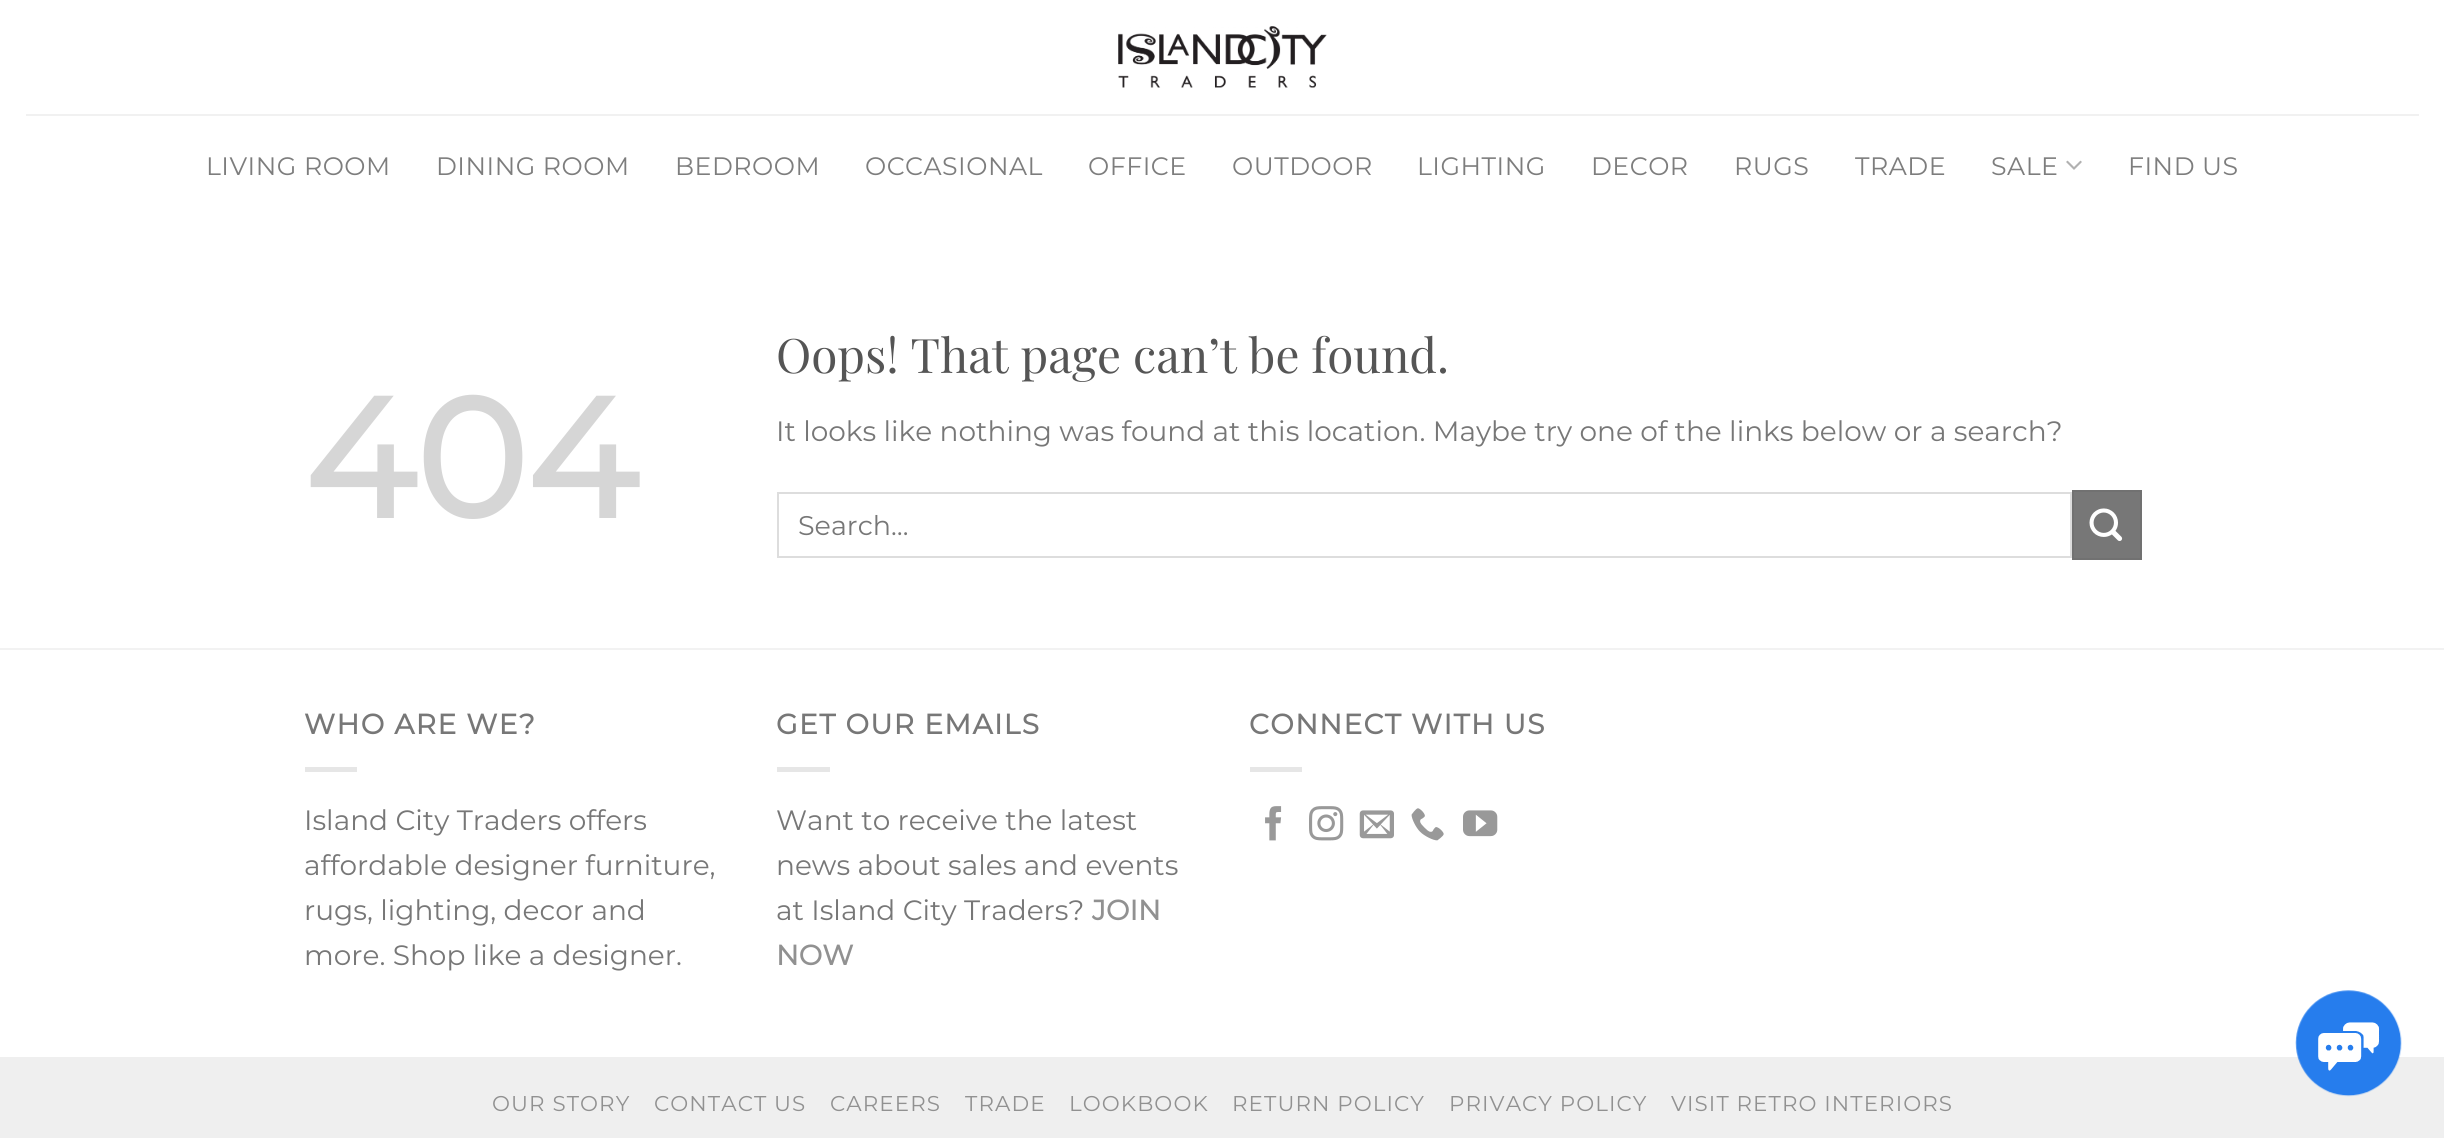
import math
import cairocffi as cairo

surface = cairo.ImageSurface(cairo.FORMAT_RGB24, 2444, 1138)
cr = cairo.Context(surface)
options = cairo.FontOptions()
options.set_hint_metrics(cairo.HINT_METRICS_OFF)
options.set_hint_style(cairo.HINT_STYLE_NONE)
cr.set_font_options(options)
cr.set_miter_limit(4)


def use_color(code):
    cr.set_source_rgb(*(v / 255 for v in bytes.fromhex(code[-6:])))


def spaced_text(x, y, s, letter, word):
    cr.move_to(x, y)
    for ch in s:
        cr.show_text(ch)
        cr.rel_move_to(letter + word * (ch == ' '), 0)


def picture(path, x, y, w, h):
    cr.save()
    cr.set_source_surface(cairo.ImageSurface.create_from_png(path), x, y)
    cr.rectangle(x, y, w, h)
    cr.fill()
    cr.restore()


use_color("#ffffff")
cr.paint()
picture("img1.png", 1118, 26, 209, 62)
use_color("#f1f1f1")
cr.rectangle(26, 114, 2393, 2)
cr.fill()
cr.select_font_face("Montserrat")
cr.set_font_size(25.25)
use_color("#7d7d7d")
spaced_text(206, 175, "LIVING ROOM", 0.5, 0)
spaced_text(436, 175, "DINING ROOM", 0.5, 0)
spaced_text(675, 175, "BEDROOM", 0.5, 0)
spaced_text(865, 175, "OCCASIONAL", 0.5, 0)
spaced_text(1088, 175, "OFFICE", 0.5, 0)
spaced_text(1232, 175, "OUTDOOR", 0.5, 0)
spaced_text(1417, 175, "LIGHTING", 0.5, 0)
spaced_text(1591, 175, "DECOR", 0.5, 0)
spaced_text(1734, 175, "RUGS", 0.5, 0)
spaced_text(1855, 175, "TRADE", 0.5, 0)
spaced_text(1991, 175, "SALE", 0.5, 0)
picture("img2.png", 2066, 160, 16, 10)
spaced_text(2128, 175, "FIND US", 0.5, 0)
cr.select_font_face("Montserrat", cairo.FONT_SLANT_NORMAL, cairo.FONT_WEIGHT_BOLD)
cr.set_font_size(168)
use_color("#d6d6d6")
cr.move_to(304, 518)
cr.show_text("404")
cr.select_font_face("Playfair Display")
cr.set_font_size(47.6)
use_color("#555555")
cr.move_to(776, 373)
cr.show_text("Oops! That page can’t be found.")
cr.select_font_face("Montserrat")
cr.set_font_size(28)
use_color("#777777")
cr.move_to(776, 441)
cr.show_text("It looks like nothing was found at this location. Maybe try one of the links below or a search?")
cr.rectangle(778, 493, 1293, 64)
use_color("#dddddd")
cr.stroke()
cr.set_font_size(27)
use_color("#777777")
cr.move_to(798, 535)
cr.show_text("Search…")
cr.rectangle(2073, 491, 68, 68)
cr.fill_preserve()
use_color("#717171")
cr.stroke()
picture("img3.png", 2089, 508, 34, 33)
use_color("#f2f2f2")
cr.rectangle(0, 648, 2444, 2)
cr.fill()
cr.select_font_face("Montserrat", cairo.FONT_SLANT_NORMAL, cairo.FONT_WEIGHT_BOLD)
cr.set_font_size(28)
use_color("#777777")
spaced_text(304, 734, "WHO ARE WE?", 1.4, 0)
use_color("#e6e6e6")
cr.rectangle(305, 767, 52, 5)
cr.fill()
cr.select_font_face("Montserrat")
use_color("#777777")
cr.move_to(304, 830)
cr.show_text("Island City Traders offers")
cr.move_to(304, 875)
cr.show_text("affordable designer furniture,")
cr.move_to(304, 920)
cr.show_text("rugs, lighting, decor and")
cr.move_to(304, 965)
cr.show_text("more. Shop like a designer.")
cr.select_font_face("Montserrat", cairo.FONT_SLANT_NORMAL, cairo.FONT_WEIGHT_BOLD)
spaced_text(776, 734, "GET OUR EMAILS", 1.4, 0)
use_color("#e6e6e6")
cr.rectangle(777, 767, 53, 5)
cr.fill()
cr.select_font_face("Montserrat")
use_color("#777777")
cr.move_to(776, 830)
cr.show_text("Want to receive the latest")
cr.move_to(776, 875)
cr.show_text("news about sales and events")
cr.move_to(776, 920)
cr.show_text("at Island City Traders?")
cr.select_font_face("Montserrat", cairo.FONT_SLANT_NORMAL, cairo.FONT_WEIGHT_BOLD)
use_color("#919191")
cr.move_to(1092, 920)
cr.show_text("JOIN")
cr.move_to(776, 965)
cr.show_text("NOW")
use_color("#777777")
spaced_text(1249, 734, "CONNECT WITH US", 1.4, 0)
use_color("#e6e6e6")
cr.rectangle(1250, 767, 52, 5)
cr.fill()
picture("img4.png", 1265, 806, 17, 35)
picture("img5.png", 1309, 806, 35, 35)
picture("img6.png", 1359, 810, 35, 29)
picture("img7.png", 1411, 808, 33, 33)
picture("img8.png", 1463, 810, 35, 27)
use_color("#efefef")
cr.rectangle(0, 1057, 2444, 81)
cr.fill()
cr.select_font_face("Montserrat")
cr.set_font_size(21.4)
use_color("#919191")
spaced_text(492, 1111, "OUR STORY", 1.1, 0)
spaced_text(654, 1111, "CONTACT US", 1.1, 0)
spaced_text(830, 1111, "CAREERS", 1.1, 0)
spaced_text(965, 1111, "TRADE", 1.1, 0)
spaced_text(1069, 1111, "LOOKBOOK", 1.1, 0)
spaced_text(1232, 1111, "RETURN POLICY", 1.1, 0)
spaced_text(1449, 1111, "PRIVACY POLICY", 1.1, 0)
spaced_text(1671, 1111, "VISIT RETRO INTERIORS", 1.1, 0)
picture("img9.png", 2295, 990, 107, 107)
surface.write_to_png("result.png")
